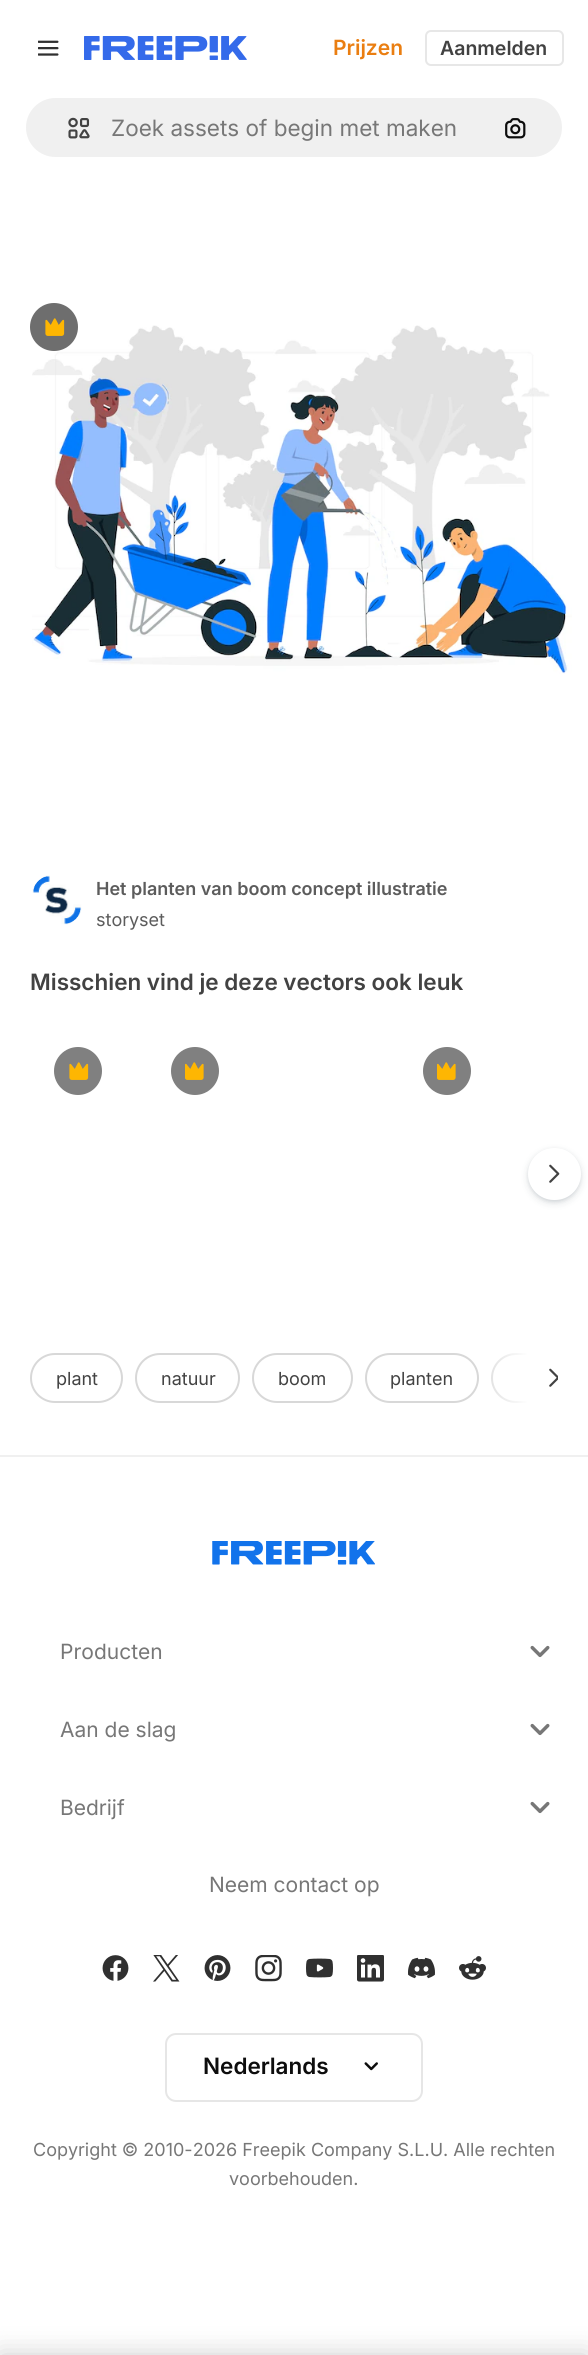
import math
import cairocffi as cairo

surface = cairo.ImageSurface(cairo.FORMAT_RGB24, 588, 2355)
cr = cairo.Context(surface)
options = cairo.FontOptions()
options.set_hint_metrics(cairo.HINT_METRICS_OFF)
options.set_hint_style(cairo.HINT_STYLE_NONE)
cr.set_font_options(options)
cr.set_miter_limit(4)


def use_color(code):
    cr.set_source_rgb(*(v / 255 for v in bytes.fromhex(code[-6:])))


def round_rect(x, y, w, h, r):
    cr.new_sub_path()
    for i, (u, v) in enumerate([(x + w - r, y + h - r), (x + r, y + h - r), (x + r, y + r), (x + w - r, y + r)]):
        cr.arc(u, v, r, i * math.pi / 2, (i + 1) * math.pi / 2)
    cr.close_path()


def shadow(x, y, w, h, r, blur, alpha):
    cr.push_group_with_content(cairo.CONTENT_ALPHA)
    cr.set_operator(cairo.OPERATOR_SOURCE)
    for i in range(15, -16, -2):
        e = blur * i / 6
        if min(w, h) + 2 * e > 0:
            cr.set_source_rgba(0, 0, 0, alpha * math.erfc((i - 1) / 8.5) / 2)
            round_rect(x - e, y - e, w + 2 * e, h + 2 * e, max(0, min(r + e + blur * .6, min(w, h) / 2 + e)))
            cr.fill()
    cr.mask(cr.pop_group())


def picture(path, x, y, w, h):
    cr.save()
    cr.set_source_surface(cairo.ImageSurface.create_from_png(path), x, y)
    cr.rectangle(x, y, w, h)
    cr.fill()
    cr.restore()


use_color("#ffffff")
cr.paint()
picture("img1.png", 38, 40, 21, 16)
picture("img2.png", 84, 36, 163, 24)
cr.select_font_face("Inter SemiBold")
cr.set_font_size(21)
use_color("#ea7e11")
cr.move_to(333, 55)
cr.show_text("Prijzen")
round_rect(426, 31, 137, 34, 5)
use_color("#e7e7e7")
cr.stroke()
cr.set_font_size(19.5)
use_color("#424242")
cr.move_to(440, 55)
cr.show_text("Aanmelden")
use_color("#f0f0f0")
round_rect(25, 97, 538, 61, 30.5)
cr.fill_preserve()
use_color("#ffffff")
cr.stroke()
picture("img3.png", 68, 117, 22, 22)
cr.select_font_face("Inter")
cr.set_font_size(22.5)
use_color("#777777")
cr.move_to(111, 136)
cr.show_text("Zoek assets of begin met maken")
picture("img4.png", 505, 118, 21, 21)
picture("img6.png", 32, 325, 540, 349)
use_color("#6e6e6e")
cr.arc(54, 327, 24, 0, 2 * math.pi)
cr.fill()
picture("img5.png", 45, 318, 20, 18)
picture("img7.png", 32, 875, 50, 50)
cr.select_font_face("Inter SemiBold")
cr.set_font_size(18)
use_color("#5c5c5c")
cr.move_to(96, 895)
cr.show_text("Het planten van boom concept illustratie")
cr.select_font_face("Inter")
cr.move_to(96, 926)
cr.show_text("storyset")
cr.select_font_face("Inter SemiBold")
cr.set_font_size(22.5)
use_color("#424242")
cr.move_to(30, 990)
cr.show_text("Misschien vind je deze vectors ook leuk")
use_color("#808080")
cr.new_path()
cr.arc(78, 1071, 24, 0, 2 * math.pi)
cr.fill()
picture("img8.png", 69, 1062, 20, 18)
cr.arc(195, 1071, 24, 0, 2 * math.pi)
cr.fill()
picture("img9.png", 185, 1062, 19, 18)
cr.arc(447, 1071, 24, 0, 2 * math.pi)
cr.fill()
picture("img9.png", 437, 1062, 19, 18)
use_color("#374957")
shadow(528, 1151, 53, 52, 26, 4, 0.15)
shadow(528, 1149, 53, 53, 26.5, 1.5, 0.1)
use_color("#ffffff")
round_rect(528, 1148, 53, 52, 26)
cr.fill()
picture("img10.png", 549, 1164, 11, 19)
round_rect(31, 1354, 91, 48, 24)
use_color("#d8d8d8")
cr.stroke()
cr.select_font_face("Inter")
cr.set_font_size(18)
use_color("#424242")
cr.move_to(56, 1385)
cr.show_text("plant")
round_rect(136, 1354, 103, 48, 24)
use_color("#d8d8d8")
cr.stroke()
use_color("#424242")
cr.move_to(161, 1385)
cr.show_text("natuur")
round_rect(253, 1354, 99, 48, 24)
use_color("#d8d8d8")
cr.stroke()
use_color("#424242")
cr.move_to(278, 1385)
cr.show_text("boom")
round_rect(366, 1354, 112, 48, 24)
use_color("#d8d8d8")
cr.stroke()
use_color("#424242")
cr.move_to(390, 1385)
cr.show_text("planten")
cr.save()
cr.rectangle(30, 1353, 528, 50)
cr.clip()
round_rect(492, 1354, 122, 48, 24)
use_color("#d8d8d8")
cr.stroke()
cr.restore()
use_color("#ffffff")
cr.rectangle(528, 1353, 30, 50)
cr.fill()
gradient = cairo.LinearGradient(528, 1378, 476, 1378)
gradient.add_color_stop_rgba(0, 1, 1, 1, 1)
gradient.add_color_stop_rgba(1, 1, 1, 1, 0)
cr.set_source(gradient)
cr.rectangle(491, 1353, 37, 50)
cr.fill()
picture("img11.png", 549, 1368, 9, 19)
use_color("#f0f0f0")
cr.rectangle(0, 1455, 588, 2)
cr.fill()
picture("img12.png", 212, 1541, 163, 24)
cr.set_font_size(21)
use_color("#777777")
cr.move_to(60, 1659)
cr.show_text("Producten")
picture("img13.png", 530, 1645, 20, 13)
cr.move_to(60, 1737)
cr.show_text("Aan de slag")
picture("img13.png", 530, 1723, 20, 13)
cr.move_to(60, 1815)
cr.show_text("Bedrijf")
picture("img13.png", 530, 1801, 20, 13)
cr.move_to(209, 1892)
cr.show_text("Neem contact op")
picture("img14.png", 102, 1955, 27, 26)
picture("img15.png", 153, 1955, 27, 27)
picture("img16.png", 204, 1955, 27, 26)
picture("img17.png", 255, 1955, 27, 27)
picture("img18.png", 306, 1958, 27, 20)
picture("img19.png", 357, 1955, 27, 27)
picture("img20.png", 408, 1957, 27, 22)
picture("img21.png", 459, 1956, 27, 24)
round_rect(166, 2034, 256, 67, 10)
use_color("#e6e6e6")
cr.stroke()
cr.select_font_face("Inter SemiBold")
cr.set_font_size(22.5)
use_color("#0d0d0d")
cr.move_to(203, 2074)
cr.show_text("Nederlands")
picture("img22.png", 364, 2062, 14, 9)
cr.select_font_face("Inter")
cr.set_font_size(18)
use_color("#777777")
cr.move_to(33, 2156)
cr.show_text("Copyright © 2010-2026 Freepik Company S.L.U. Alle rechten")
cr.move_to(229, 2185)
cr.show_text("voorbehouden.")
use_color("#000000")
shadow(0, 2355, 588, 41, 0, 13.5, 0.2)
surface.write_to_png("result.png")
